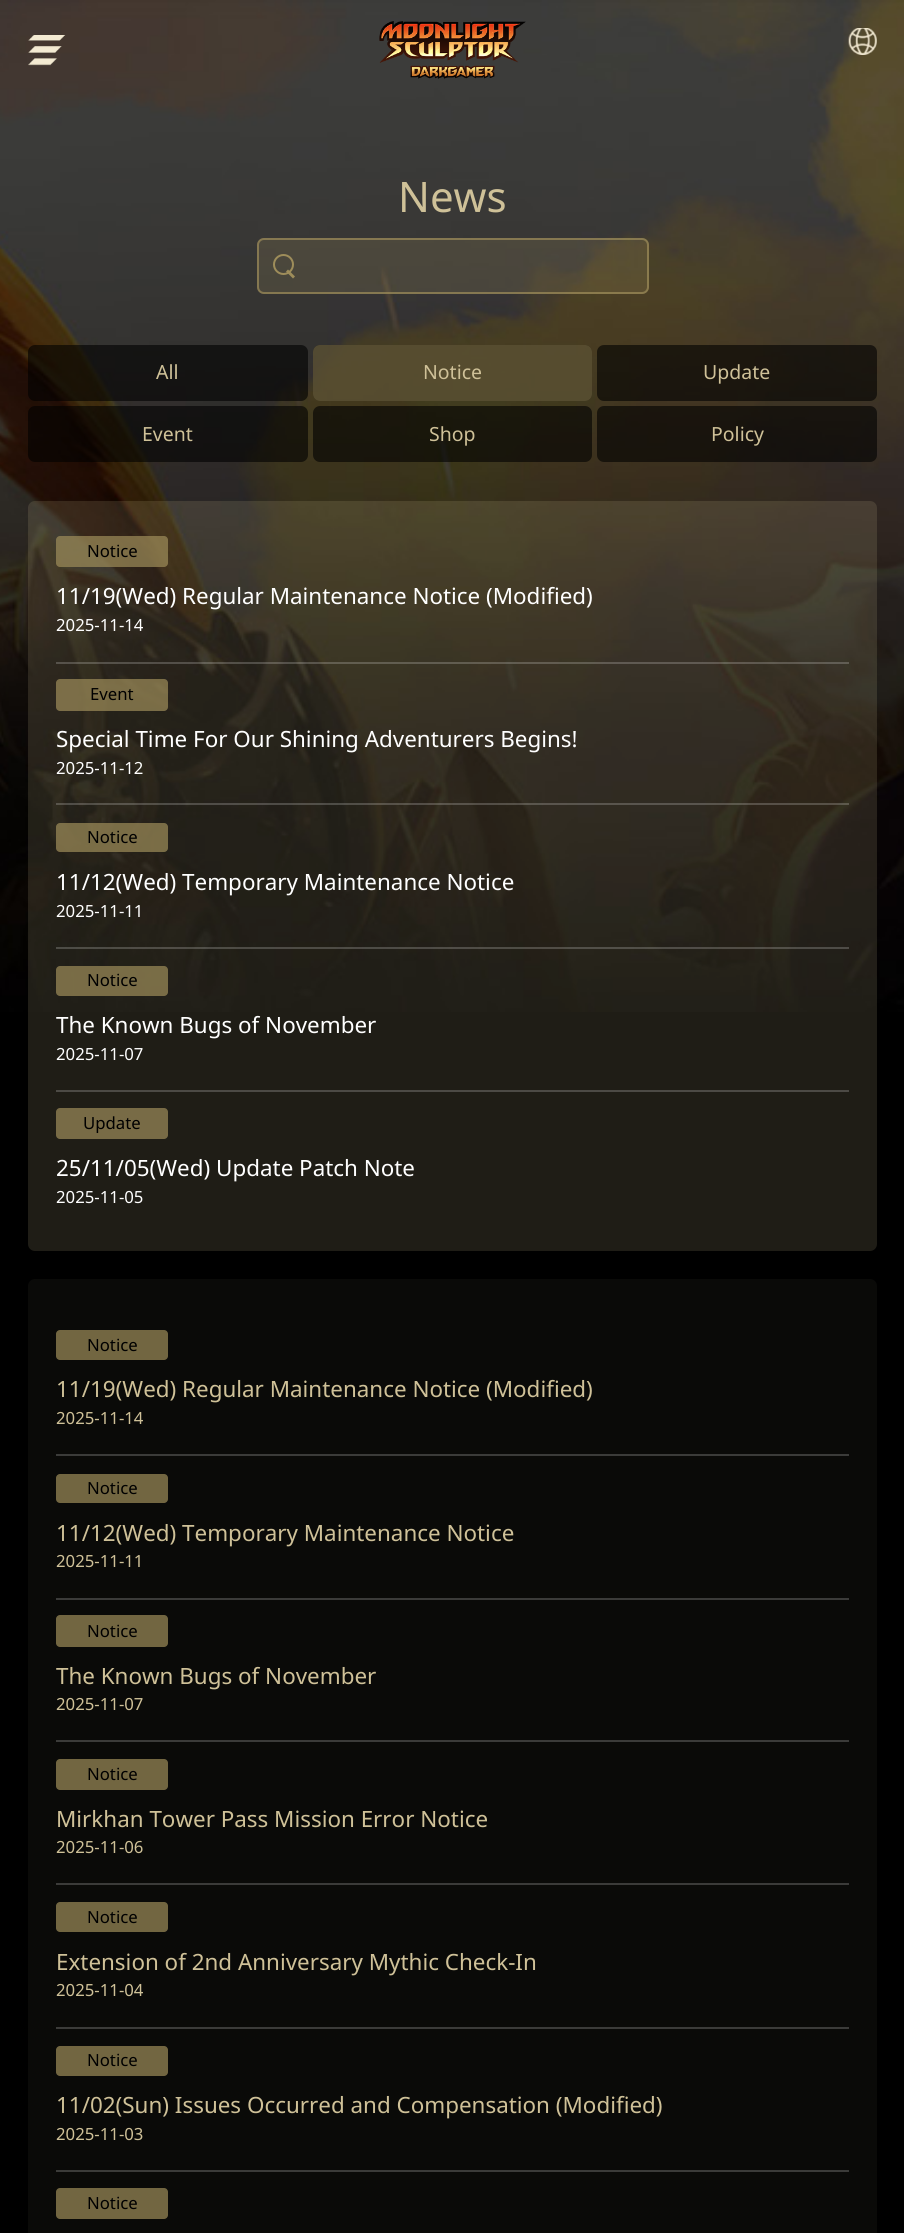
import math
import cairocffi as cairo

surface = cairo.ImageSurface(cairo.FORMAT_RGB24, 904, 2233)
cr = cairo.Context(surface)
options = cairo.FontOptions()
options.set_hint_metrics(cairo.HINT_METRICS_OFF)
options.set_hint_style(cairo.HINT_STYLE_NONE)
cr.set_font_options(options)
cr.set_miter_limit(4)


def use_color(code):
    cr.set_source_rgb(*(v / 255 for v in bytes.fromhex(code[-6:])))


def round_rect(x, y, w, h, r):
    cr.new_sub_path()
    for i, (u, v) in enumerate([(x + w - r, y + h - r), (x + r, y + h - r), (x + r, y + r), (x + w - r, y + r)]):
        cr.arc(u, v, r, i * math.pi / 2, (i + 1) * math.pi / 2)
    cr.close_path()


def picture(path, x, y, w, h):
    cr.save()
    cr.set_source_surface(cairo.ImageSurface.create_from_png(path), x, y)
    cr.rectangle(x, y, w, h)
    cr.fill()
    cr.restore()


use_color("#000000")
cr.paint()
picture("img4.png", 0, 0, 904, 1012)
picture("img1.png", 28, 35, 38, 31)
picture("img2.png", 379, 21, 147, 58)
picture("img3.png", 848, 28, 29, 27)
cr.select_font_face("Noto Sans")
cr.set_font_size(42)
use_color("#cfc198")
cr.move_to(398, 212)
cr.show_text("News")
cr.set_source_rgba(0.62, 0.553, 0.353, 0.2)
round_rect(257, 238, 392, 56, 7)
cr.fill()
round_rect(258, 239, 390, 54, 6)
cr.set_source_rgba(0.62, 0.553, 0.353, 0.7)
cr.stroke()
cr.arc(283.5, 264.5, 9.5, 0, 2 * math.pi)
use_color("#9e8d5a")
cr.stroke()
cr.new_path()
cr.move_to(288, 269.5)
cr.line_to(295, 276.5)
cr.line_to(293, 278.5)
cr.line_to(286, 271.5)
cr.close_path()
cr.fill()
cr.set_source_rgba(0, 0, 0, 0.6)
round_rect(28, 345, 280, 56, 7)
cr.fill()
cr.set_font_size(19.5)
use_color("#cfc198")
cr.move_to(156, 379)
cr.show_text("All")
cr.set_source_rgba(0, 0, 0, 0.6)
round_rect(313, 345, 279, 56, 7)
cr.fill()
cr.set_source_rgba(0.62, 0.553, 0.353, 0.45)
round_rect(313, 345, 279, 56, 7)
cr.fill()
use_color("#cfc198")
cr.move_to(423, 379)
cr.show_text("Notice")
cr.set_source_rgba(0, 0, 0, 0.6)
round_rect(597, 345, 280, 56, 7)
cr.fill()
use_color("#cfc198")
cr.move_to(703, 379)
cr.show_text("Update")
cr.set_source_rgba(0, 0, 0, 0.6)
round_rect(28, 406, 280, 56, 7)
cr.fill()
use_color("#cfc198")
cr.move_to(142, 441)
cr.show_text("Event")
cr.set_source_rgba(0, 0, 0, 0.6)
round_rect(313, 406, 279, 56, 7)
cr.fill()
use_color("#cfc198")
cr.move_to(429, 441)
cr.show_text("Shop")
cr.set_source_rgba(0, 0, 0, 0.6)
round_rect(597, 406, 280, 56, 7)
cr.fill()
use_color("#cfc198")
cr.move_to(711, 441)
cr.show_text("Policy")
cr.set_source_rgba(0.812, 0.757, 0.596, 0.15)
round_rect(28, 501, 849, 750, 7)
cr.fill()
cr.set_source_rgba(0.62, 0.553, 0.353, 0.7)
round_rect(56, 536, 112, 31, 4)
cr.fill()
cr.set_font_size(16.75)
use_color("#000000")
cr.move_to(87, 557)
cr.show_text("Notice")
cr.set_font_size(22.4)
use_color("#ffffff")
cr.move_to(56, 604)
cr.show_text("11/19(Wed) Regular Maintenance Notice (Modified)")
cr.set_font_size(16.75)
cr.move_to(56, 631)
cr.show_text("2025-11-14")
cr.set_source_rgba(1, 1, 1, 0.2)
cr.rectangle(56, 662, 793, 2)
cr.fill()
cr.set_source_rgba(0.62, 0.553, 0.353, 0.7)
round_rect(56, 679, 112, 32, 4)
cr.fill()
use_color("#000000")
cr.move_to(90, 700)
cr.show_text("Event")
cr.set_font_size(22.4)
use_color("#ffffff")
cr.move_to(56, 747)
cr.show_text("Special Time For Our Shining Adventurers Begins!")
cr.set_font_size(16.75)
cr.move_to(56, 774)
cr.show_text("2025-11-12")
cr.set_source_rgba(1, 1, 1, 0.2)
cr.rectangle(56, 803, 793, 2)
cr.fill()
cr.set_source_rgba(0.62, 0.553, 0.353, 0.7)
round_rect(56, 823, 112, 29, 4)
cr.fill()
use_color("#000000")
cr.move_to(87, 843)
cr.show_text("Notice")
cr.set_font_size(22.4)
use_color("#ffffff")
cr.move_to(56, 890)
cr.show_text("11/12(Wed) Temporary Maintenance Notice")
cr.set_font_size(16.75)
cr.move_to(56, 917)
cr.show_text("2025-11-11")
cr.set_source_rgba(1, 1, 1, 0.2)
cr.rectangle(56, 947, 793, 2)
cr.fill()
cr.set_source_rgba(0.62, 0.553, 0.353, 0.7)
round_rect(56, 966, 112, 30, 4)
cr.fill()
use_color("#000000")
cr.move_to(87, 986)
cr.show_text("Notice")
cr.set_font_size(22.4)
use_color("#ffffff")
cr.move_to(56, 1033)
cr.show_text("The Known Bugs of November")
cr.set_font_size(16.75)
cr.move_to(56, 1060)
cr.show_text("2025-11-07")
use_color("#4c4a45")
cr.rectangle(56, 1090, 793, 2)
cr.fill()
use_color("#786b46")
round_rect(56, 1108, 112, 31, 4)
cr.fill()
use_color("#000000")
cr.move_to(83, 1129)
cr.show_text("Update")
cr.set_font_size(22.4)
use_color("#ffffff")
cr.move_to(56, 1176)
cr.show_text("25/11/05(Wed) Update Patch Note")
cr.set_font_size(16.75)
cr.move_to(56, 1203)
cr.show_text("2025-11-05")
use_color("#0a0a08")
round_rect(28, 1279, 849, 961, 7)
cr.fill()
use_color("#726641")
round_rect(56, 1330, 112, 30, 4)
cr.fill()
use_color("#000000")
cr.move_to(87, 1351)
cr.show_text("Notice")
cr.set_font_size(22.4)
use_color("#cfc198")
cr.move_to(56, 1397)
cr.show_text("11/19(Wed) Regular Maintenance Notice (Modified)")
cr.set_font_size(16.75)
cr.move_to(56, 1424)
cr.show_text("2025-11-14")
use_color("#3b3b39")
cr.rectangle(56, 1454, 793, 2)
cr.fill()
use_color("#726641")
round_rect(56, 1474, 112, 29, 4)
cr.fill()
use_color("#000000")
cr.move_to(87, 1494)
cr.show_text("Notice")
cr.set_font_size(22.4)
use_color("#cfc198")
cr.move_to(56, 1541)
cr.show_text("11/12(Wed) Temporary Maintenance Notice")
cr.set_font_size(16.75)
cr.move_to(56, 1567)
cr.show_text("2025-11-11")
use_color("#3b3b39")
cr.rectangle(56, 1598, 793, 2)
cr.fill()
use_color("#726641")
round_rect(56, 1615, 112, 32, 4)
cr.fill()
use_color("#000000")
cr.move_to(87, 1637)
cr.show_text("Notice")
cr.set_font_size(22.4)
use_color("#cfc198")
cr.move_to(56, 1684)
cr.show_text("The Known Bugs of November")
cr.set_font_size(16.75)
cr.move_to(56, 1710)
cr.show_text("2025-11-07")
use_color("#3b3b39")
cr.rectangle(56, 1740, 793, 2)
cr.fill()
use_color("#726641")
round_rect(56, 1759, 112, 31, 4)
cr.fill()
use_color("#000000")
cr.move_to(87, 1780)
cr.show_text("Notice")
cr.set_font_size(22.4)
use_color("#cfc198")
cr.move_to(56, 1827)
cr.show_text("Mirkhan Tower Pass Mission Error Notice")
cr.set_font_size(16.75)
cr.move_to(56, 1853)
cr.show_text("2025-11-06")
use_color("#3b3b39")
cr.rectangle(56, 1883, 793, 2)
cr.fill()
use_color("#726641")
round_rect(56, 1902, 112, 30, 4)
cr.fill()
use_color("#000000")
cr.move_to(87, 1923)
cr.show_text("Notice")
cr.set_font_size(22.4)
use_color("#cfc198")
cr.move_to(56, 1970)
cr.show_text("Extension of 2nd Anniversary Mythic Check-In")
cr.set_font_size(16.75)
cr.move_to(56, 1996)
cr.show_text("2025-11-04")
use_color("#3b3b39")
cr.rectangle(56, 2027, 793, 2)
cr.fill()
use_color("#726641")
round_rect(56, 2046, 112, 30, 4)
cr.fill()
use_color("#000000")
cr.move_to(87, 2066)
cr.show_text("Notice")
cr.set_font_size(22.4)
use_color("#cfc198")
cr.move_to(56, 2113)
cr.show_text("11/02(Sun) Issues Occurred and Compensation (Modified)")
cr.set_font_size(16.75)
cr.move_to(56, 2140)
cr.show_text("2025-11-03")
use_color("#3b3b39")
cr.rectangle(56, 2170, 793, 2)
cr.fill()
use_color("#726641")
round_rect(56, 2188, 112, 31, 4)
cr.fill()
use_color("#000000")
cr.move_to(87, 2209)
cr.show_text("Notice")
surface.write_to_png("result.png")
